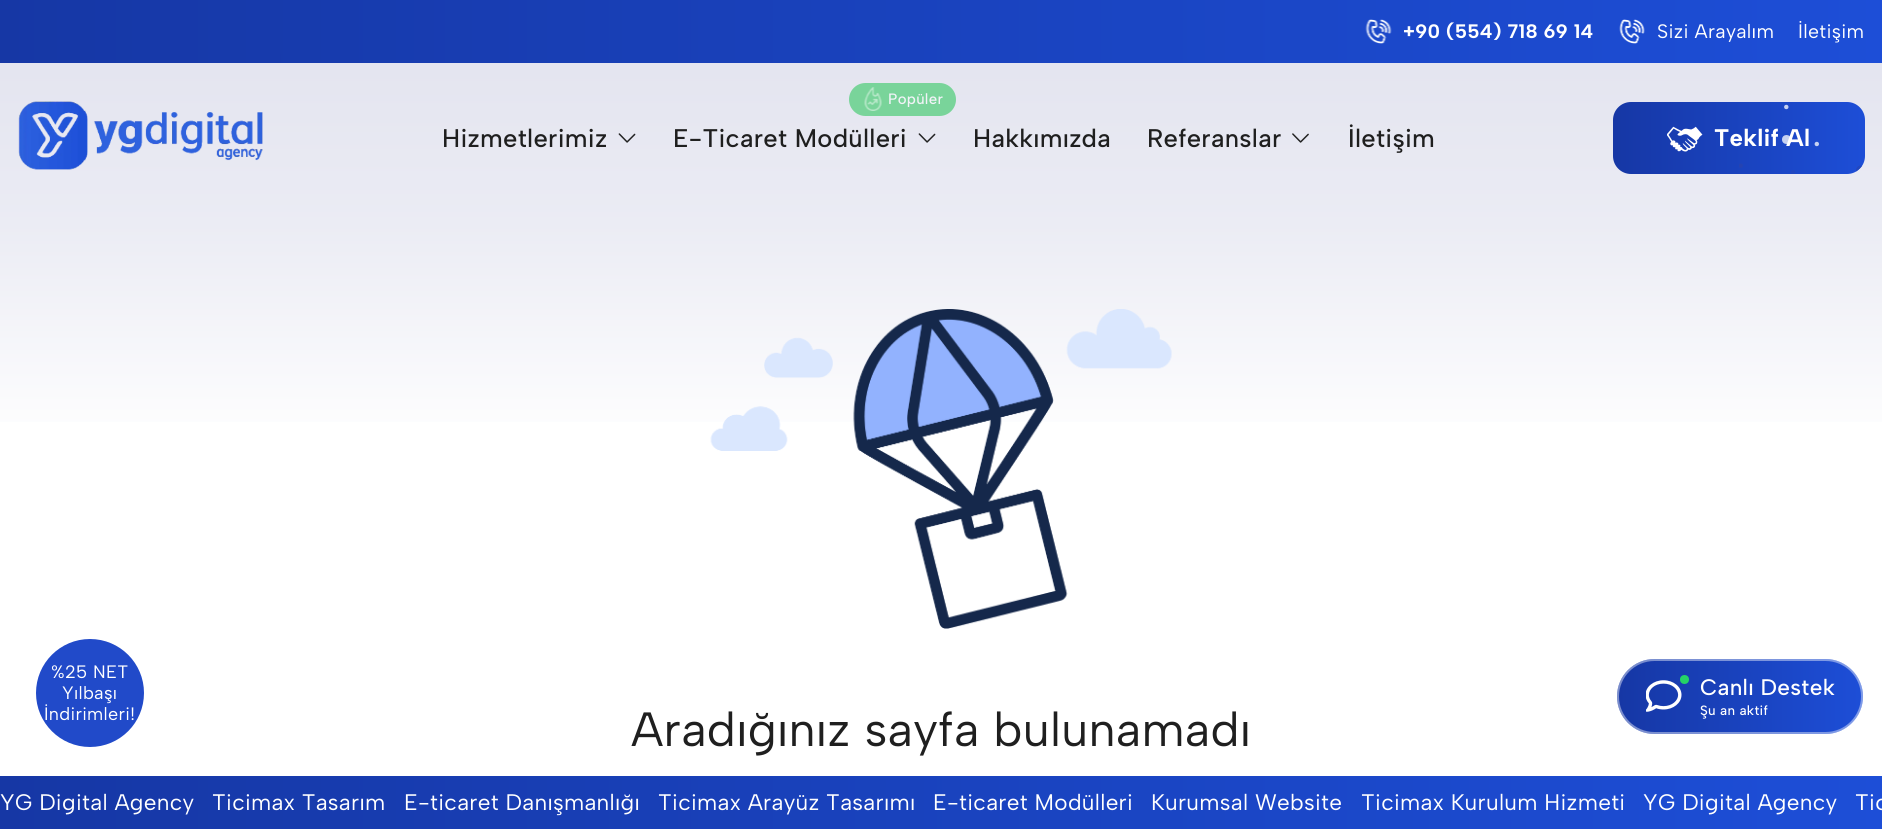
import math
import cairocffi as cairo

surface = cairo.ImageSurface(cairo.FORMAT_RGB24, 1882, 829)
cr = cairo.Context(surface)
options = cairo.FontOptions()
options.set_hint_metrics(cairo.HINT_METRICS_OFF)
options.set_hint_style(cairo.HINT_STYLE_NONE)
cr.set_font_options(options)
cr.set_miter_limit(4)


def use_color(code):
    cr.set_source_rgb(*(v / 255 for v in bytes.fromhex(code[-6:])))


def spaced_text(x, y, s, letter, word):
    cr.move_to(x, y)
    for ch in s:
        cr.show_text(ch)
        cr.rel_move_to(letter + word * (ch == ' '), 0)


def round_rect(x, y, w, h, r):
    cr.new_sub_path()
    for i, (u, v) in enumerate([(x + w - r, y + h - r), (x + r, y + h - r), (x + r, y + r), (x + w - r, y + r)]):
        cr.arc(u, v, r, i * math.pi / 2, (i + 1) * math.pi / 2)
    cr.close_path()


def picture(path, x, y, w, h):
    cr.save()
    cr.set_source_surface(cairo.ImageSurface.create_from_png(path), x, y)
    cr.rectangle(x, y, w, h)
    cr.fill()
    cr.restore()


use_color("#ffffff")
cr.paint()
gradient = cairo.LinearGradient(0, 32, 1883, 31)
gradient.add_color_stop_rgba(0, 0.086, 0.216, 0.647, 1)
gradient.add_color_stop_rgba(1, 0.114, 0.306, 0.843, 1)
cr.set_source(gradient)
cr.rectangle(0, 0, 1882, 63)
cr.fill()
picture("img1.png", 1365, 19, 27, 25)
cr.select_font_face("Albert Sans", cairo.FONT_SLANT_NORMAL, cairo.FONT_WEIGHT_BOLD)
cr.set_font_size(19.5)
use_color("#ffffff")
spaced_text(1403, 38, "+90 (554) 718 69 14", 0.3, 0)
picture("img2.png", 1619, 19, 26, 25)
cr.select_font_face("Albert Sans")
spaced_text(1657, 38, "Sizi Arayalım", 0.3, 0)
spaced_text(1798, 38, "İletişim", 0.3, 0)
gradient = cairo.LinearGradient(941, 0, 941, 450)
gradient.add_color_stop_rgba(0, 0.882, 0.886, 0.933, 1)
gradient.add_color_stop_rgba(0.5, 0.922, 0.925, 0.957, 1)
gradient.add_color_stop_rgba(1, 1, 1, 1, 1)
cr.set_source(gradient)
cr.rectangle(0, 63, 1882, 359)
cr.fill()
picture("img3.png", 18, 101, 245, 69)
cr.select_font_face("Albert Sans Medium")
cr.set_font_size(25.5)
use_color("#1f1f1f")
spaced_text(442, 147, "Hizmetlerimiz", 0.3, 0)
picture("img4.png", 618, 133, 18, 10)
use_color("#79d49a")
round_rect(849, 83, 107, 33, 16.5)
cr.fill()
picture("img5.png", 864, 87, 18, 24)
cr.set_font_size(15)
use_color("#f2f3f8")
spaced_text(888, 104, "Popüler", 0.3, 0)
cr.set_font_size(25.5)
use_color("#1f1f1f")
spaced_text(673, 147, "E-Ticaret Modülleri", 0.3, 0)
picture("img4.png", 918, 133, 18, 10)
spaced_text(973, 147, "Hakkımızda", 0.3, 0)
spaced_text(1147, 147, "Referanslar", 0.3, 0)
picture("img6.png", 1292, 133, 17, 10)
spaced_text(1348, 147, "İletişim", 0.3, 0)
gradient = cairo.LinearGradient(1613, 138, 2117, 138)
gradient.add_color_stop_rgba(0, 0.086, 0.216, 0.647, 1)
gradient.add_color_stop_rgba(0.5, 0.114, 0.306, 0.843, 1)
gradient.add_color_stop_rgba(1, 0.086, 0.216, 0.647, 1)
cr.set_source(gradient)
round_rect(1613, 102, 252, 72, 18)
cr.fill()
picture("img7.png", 1667, 126, 36, 26)
use_color("#c6d1f1")
cr.arc(1786.3, 107, 2.2, 0, 2 * math.pi)
cr.fill()
cr.select_font_face("Albert Sans", cairo.FONT_SLANT_NORMAL, cairo.FONT_WEIGHT_BOLD)
cr.set_font_size(24)
use_color("#ffffff")
spaced_text(1714, 146, "Teklif Al", 0.3, 0)
cr.set_source_rgba(1, 1, 1, 0.75)
cr.new_path()
cr.arc(1786.5, 139.5, 4.5, 0, 2 * math.pi)
cr.fill()
use_color("#c6d2f3")
cr.arc(1816.8, 144, 2.2, 0, 2 * math.pi)
cr.fill()
cr.save()
cr.rectangle(1739, 14, 126, 160)
cr.clip()
use_color("#2443b2")
cr.arc(1740.7, 165.7, 2.2, 0, 2 * math.pi)
cr.fill()
cr.restore()
cr.set_source_rgba(0.145, 0.271, 0.714, 0.75)
cr.new_path()
cr.move_to(1860.5, 165.5)
cr.line_to(1862, 166)
cr.curve_to(1860.5, 168, 1858.5, 170, 1856, 171.5)
cr.curve_to(1855.5, 168.5, 1857.5, 165.5, 1860.5, 165.5)
cr.close_path()
cr.fill()
use_color("#2147c0")
cr.new_path()
cr.move_to(1793, 170)
cr.curve_to(1795, 170, 1796, 173, 1794, 174)
cr.line_to(1791.5, 174)
cr.curve_to(1790, 173, 1791, 170, 1793, 170)
cr.close_path()
cr.fill()
use_color("#214ac9")
cr.arc(90, 693, 54, 0, 2 * math.pi)
cr.fill()
cr.select_font_face("Albert Sans")
cr.set_font_size(18)
use_color("#ffffff")
spaced_text(51, 678, "%25 NET", 0.3, 0)
spaced_text(62, 699, "Yılbaşı", 0.3, 0)
spaced_text(44, 720, "İndirimleri!", 0.3, 0)
cr.save()
round_rect(1617, 659, 246, 75, 37.5)
cr.clip()
gradient = cairo.LinearGradient(1133, 696, 1619, 696)
gradient.add_color_stop_rgba(0, 0.086, 0.216, 0.647, 1)
gradient.add_color_stop_rgba(0.5, 0.114, 0.306, 0.843, 1)
gradient.add_color_stop_rgba(1, 0.086, 0.216, 0.647, 1)
cr.set_source(gradient)
cr.rectangle(1617, 684, 2, 25)
cr.fill()
gradient = cairo.LinearGradient(1619, 696, 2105, 696)
gradient.add_color_stop_rgba(0, 0.086, 0.216, 0.647, 1)
gradient.add_color_stop_rgba(0.5, 0.114, 0.306, 0.843, 1)
gradient.add_color_stop_rgba(1, 0.086, 0.216, 0.647, 1)
cr.set_source(gradient)
cr.new_path()
cr.move_to(1619, 659)
cr.line_to(1825.5, 659)
cr.curve_to(1846, 659, 1863, 676, 1863, 696.5)
cr.curve_to(1863, 717, 1846, 734, 1825.5, 734)
cr.line_to(1619, 734)
cr.close_path()
cr.fill()
cr.restore()
round_rect(1618, 660, 244, 73, 36.5)
cr.set_source_rgba(1, 1, 1, 0.43)
cr.stroke()
picture("img8.png", 1646, 680, 36, 32)
use_color("#25d366")
cr.arc(1684.5, 679.5, 4.5, 0, 2 * math.pi)
cr.fill()
cr.select_font_face("Albert Sans Medium")
cr.set_font_size(22.5)
use_color("#ffffff")
spaced_text(1700, 695, "Canlı Destek", 0.3, 0)
cr.set_font_size(13.5)
spaced_text(1700, 715, "Şu an aktif", 0.3, 0)
picture("img9.png", 710, 309, 462, 320)
cr.select_font_face("Albert Sans")
cr.set_font_size(48)
use_color("#1f1f1f")
spaced_text(631, 746, "Aradığınız sayfa bulunamadı", 0.3, 0)
gradient = cairo.LinearGradient(0, 803, 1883, 803)
gradient.add_color_stop_rgba(0, 0.086, 0.216, 0.647, 1)
gradient.add_color_stop_rgba(1, 0.114, 0.306, 0.843, 1)
cr.set_source(gradient)
cr.rectangle(0, 776, 1882, 53)
cr.fill()
cr.set_font_size(22.5)
use_color("#ffffff")
spaced_text(0, 810, "YG Digital Agency", 0.3, 0)
spaced_text(212, 810, "Ticimax Tasarım", 0.3, 0)
spaced_text(404, 810, "E-ticaret Danışmanlığı", 0.3, 0)
spaced_text(658, 810, "Ticimax Arayüz Tasarımı", 0.3, 0)
spaced_text(933, 810, "E-ticaret Modülleri", 0.3, 0)
spaced_text(1151, 810, "Kurumsal Website", 0.3, 0)
spaced_text(1361, 810, "Ticimax Kurulum Hizmeti", 0.3, 0)
spaced_text(1643, 810, "YG Digital Agency", 0.3, 0)
spaced_text(1855, 810, "Tic", 0.3, 0)
surface.write_to_png("result.png")
